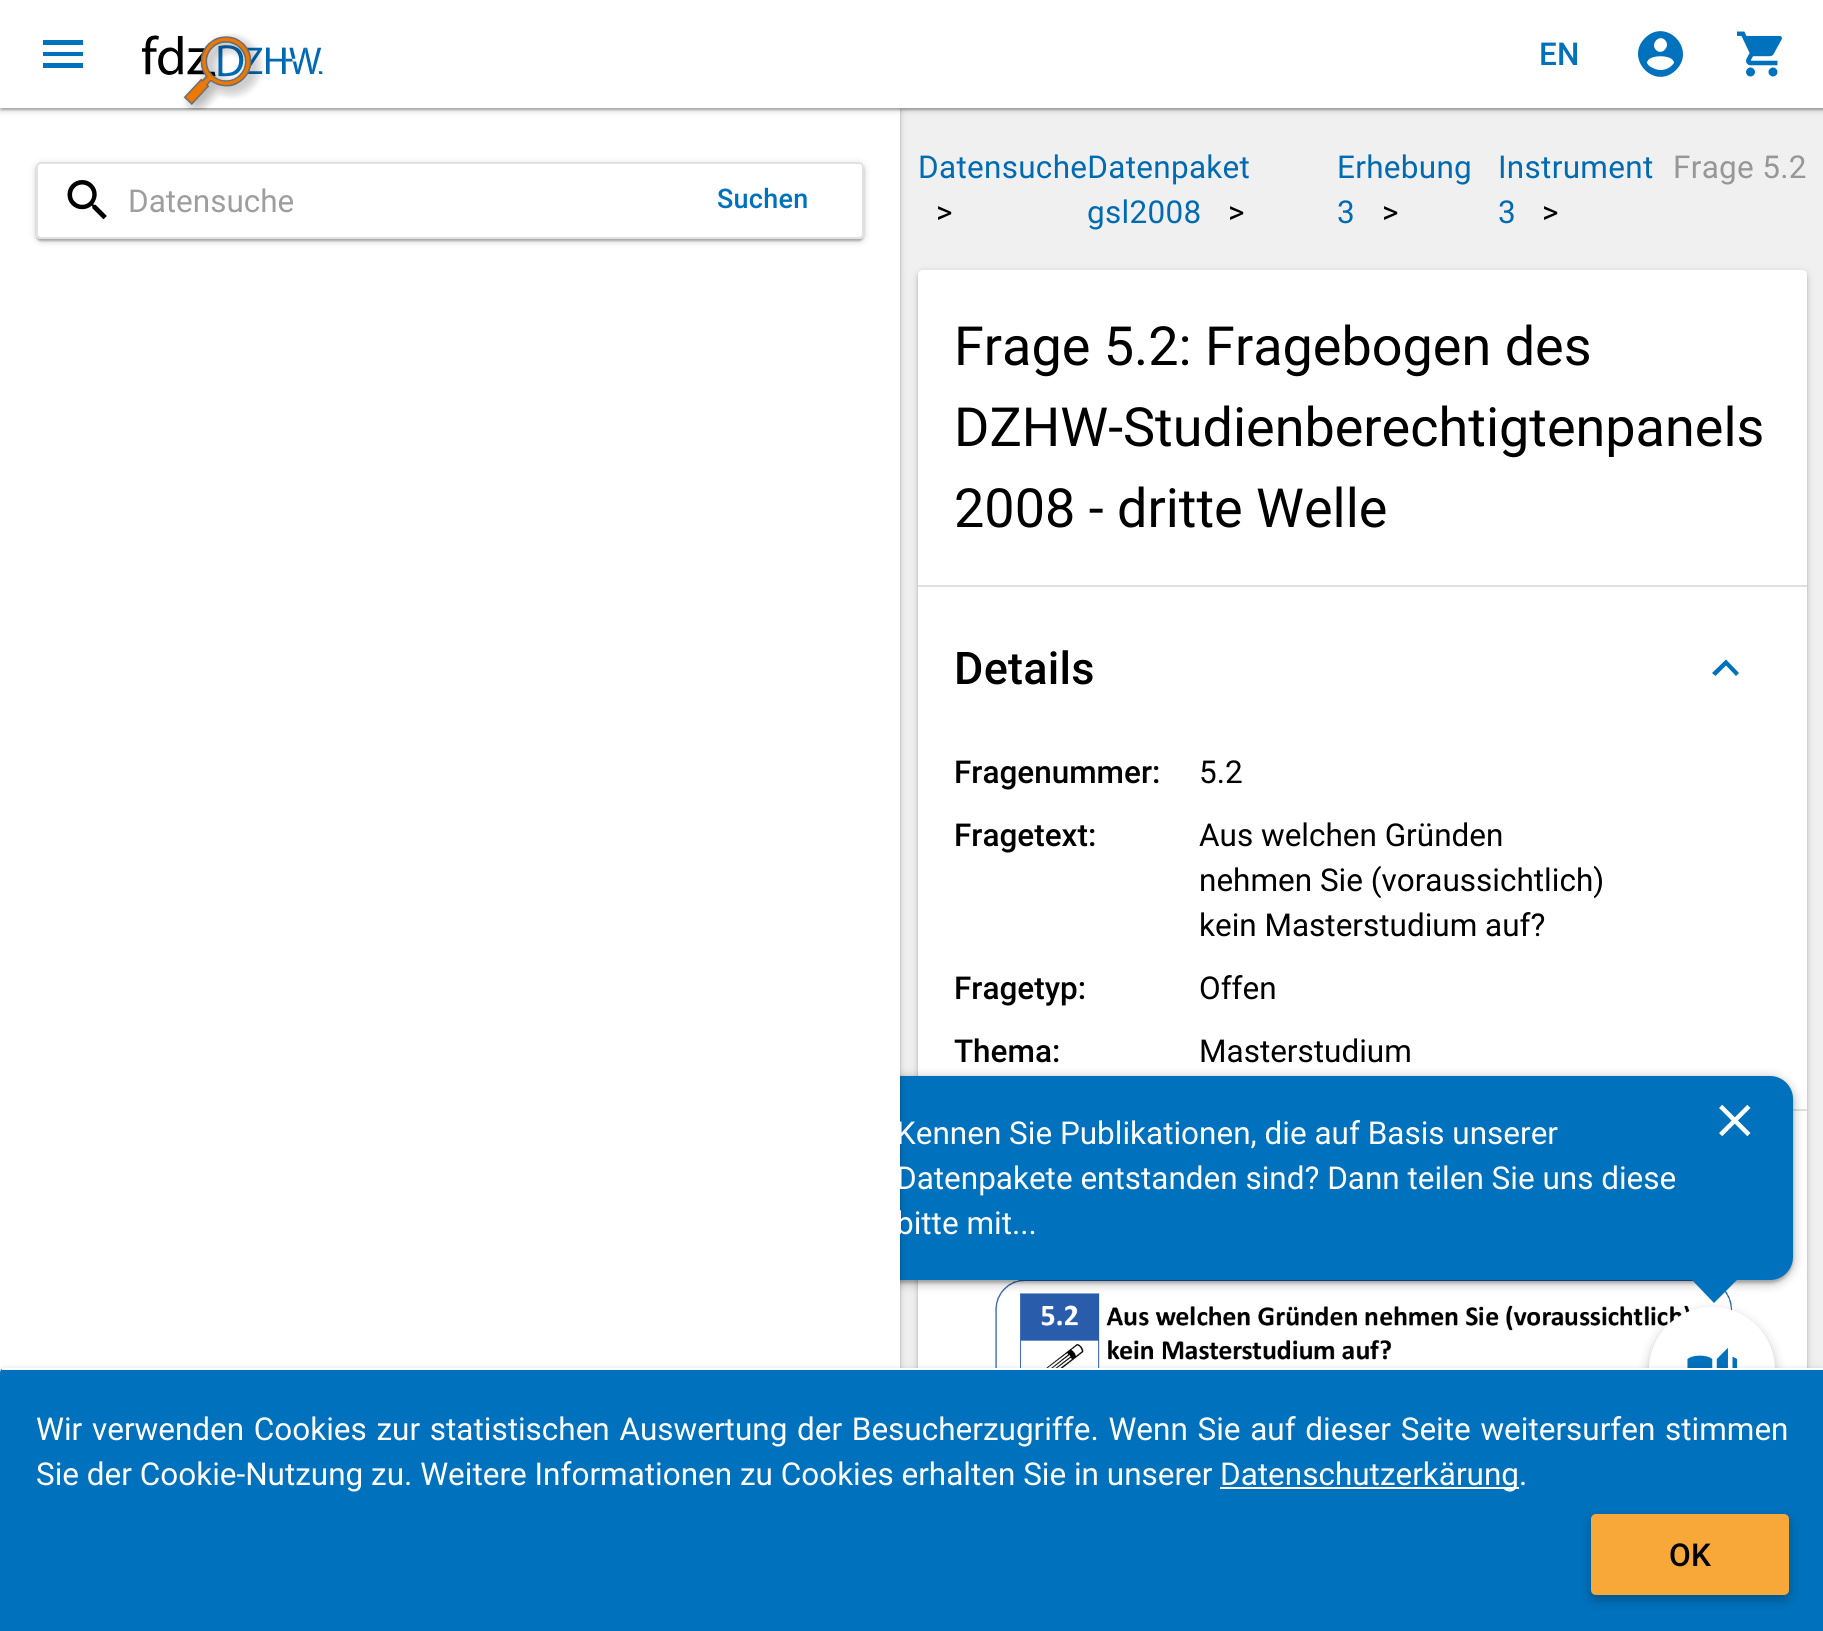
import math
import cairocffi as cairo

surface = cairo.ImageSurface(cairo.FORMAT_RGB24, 1823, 1631)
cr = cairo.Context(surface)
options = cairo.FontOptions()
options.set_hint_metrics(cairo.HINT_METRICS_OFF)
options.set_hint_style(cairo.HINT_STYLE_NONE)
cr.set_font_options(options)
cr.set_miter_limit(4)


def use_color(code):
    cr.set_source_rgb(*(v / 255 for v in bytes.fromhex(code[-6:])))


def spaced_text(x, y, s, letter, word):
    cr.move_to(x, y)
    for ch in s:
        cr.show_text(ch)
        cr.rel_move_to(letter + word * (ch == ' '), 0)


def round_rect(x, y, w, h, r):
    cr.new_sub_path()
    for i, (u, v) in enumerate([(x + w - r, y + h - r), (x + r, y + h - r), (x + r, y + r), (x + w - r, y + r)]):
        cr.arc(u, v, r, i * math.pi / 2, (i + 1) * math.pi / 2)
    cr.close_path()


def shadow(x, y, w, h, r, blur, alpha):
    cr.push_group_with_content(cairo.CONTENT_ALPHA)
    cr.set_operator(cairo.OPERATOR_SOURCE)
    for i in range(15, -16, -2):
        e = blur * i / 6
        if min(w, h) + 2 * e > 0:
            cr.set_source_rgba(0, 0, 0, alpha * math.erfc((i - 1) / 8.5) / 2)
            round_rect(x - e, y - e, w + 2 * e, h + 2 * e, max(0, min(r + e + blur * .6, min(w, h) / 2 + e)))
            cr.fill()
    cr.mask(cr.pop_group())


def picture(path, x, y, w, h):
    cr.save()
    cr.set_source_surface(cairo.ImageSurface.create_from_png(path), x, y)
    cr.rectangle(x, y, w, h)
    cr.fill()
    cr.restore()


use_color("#f0f0f0")
cr.paint()
use_color("#000000")
shadow(918, 272, 889, 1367, 5, 1, 0.14)
shadow(918, 272, 889, 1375, 5, 3.5, 0.2)
use_color("#ffffff")
cr.new_path()
cr.move_to(923, 270)
cr.line_to(1802, 270)
cr.curve_to(1805, 270, 1807, 272, 1807, 275)
cr.line_to(1807, 1631)
cr.line_to(918, 1631)
cr.line_to(918, 275)
cr.curve_to(918, 272, 920, 270, 923, 270)
cr.close_path()
cr.fill()
use_color("#e0e0e0")
cr.rectangle(1793, 1109, 14, 2)
cr.fill()
picture("img4.png", 995, 1280, 737, 88)
use_color("#000000")
shadow(848, 1078, 945, 205, 23, 1.5, 0.2)
shadow(848, 1078, 945, 205, 23, 5.5, 0.3)
use_color("#0071bc")
round_rect(848, 1076, 945, 204, 23)
cr.fill()
use_color("#000000")
shadow(0, 110, 900, 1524, 0, 1, 0.14)
shadow(0, 110, 900, 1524, 0, 3.5, 0.2)
use_color("#ffffff")
cr.rectangle(0, 108, 900, 1265)
cr.fill()
use_color("#000000")
shadow(2, 7, 1821, 103, 0, 1, 0.12)
shadow(0, 2, 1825, 108, 0, 1, 0.14)
shadow(0, 2, 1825, 108, 0, 3.5, 0.2)
use_color("#ffffff")
cr.rectangle(0, 0, 1823, 108)
cr.fill()
use_color("#0071bc")
cr.new_path()
cr.move_to(43, 40)
cr.line_to(83, 40)
cr.line_to(83, 45)
cr.line_to(43, 45)
cr.close_path()
cr.move_to(43, 56)
cr.line_to(43, 52)
cr.line_to(83, 52)
cr.line_to(83, 56)
cr.close_path()
cr.move_to(43, 68)
cr.line_to(43, 63)
cr.line_to(83, 63)
cr.line_to(83, 68)
cr.close_path()
cr.fill()
picture("img1.png", 141, 33, 182, 77)
cr.select_font_face("Roboto Medium")
cr.set_font_size(31.5)
spaced_text(1539, 65, "EN", 0.3, 0)
cr.new_path()
cr.move_to(1653, 68)
cr.curve_to(1660, 72, 1669, 70, 1674, 63)
cr.curve_to(1674, 54, 1647, 54, 1647, 63)
cr.curve_to(1648, 65, 1650, 67, 1653, 68)
cr.close_path()
cr.move_to(1665, 40)
cr.curve_to(1659, 34, 1650, 44, 1656, 50)
cr.curve_to(1662, 56, 1671, 46, 1665, 40)
cr.close_path()
cr.move_to(1645, 38)
cr.curve_to(1666, 17, 1697, 49, 1676, 70)
cr.curve_to(1655, 91, 1624, 59, 1645, 38)
cr.close_path()
cr.fill()
picture("img2.png", 1736, 31, 46, 46)
cr.save()
cr.set_fill_rule(cairo.FILL_RULE_EVEN_ODD)
cr.new_path()
cr.move_to(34, 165)
cr.line_to(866, 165)
cr.line_to(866, 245)
cr.line_to(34, 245)
cr.close_path()
cr.move_to(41, 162)
cr.line_to(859, 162)
cr.curve_to(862, 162, 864, 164, 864, 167)
cr.line_to(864, 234)
cr.curve_to(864, 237, 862, 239, 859, 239)
cr.line_to(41, 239)
cr.curve_to(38, 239, 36, 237, 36, 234)
cr.line_to(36, 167)
cr.curve_to(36, 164, 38, 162, 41, 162)
cr.close_path()
cr.clip()
use_color("#000000")
shadow(38, 169, 824, 72, 2, 1, 0.12)
cr.restore()
cr.save()
cr.set_fill_rule(cairo.FILL_RULE_EVEN_ODD)
cr.new_path()
cr.move_to(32, 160)
cr.line_to(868, 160)
cr.line_to(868, 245)
cr.line_to(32, 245)
cr.close_path()
cr.move_to(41, 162)
cr.line_to(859, 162)
cr.curve_to(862, 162, 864, 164, 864, 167)
cr.line_to(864, 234)
cr.curve_to(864, 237, 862, 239, 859, 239)
cr.line_to(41, 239)
cr.curve_to(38, 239, 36, 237, 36, 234)
cr.line_to(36, 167)
cr.curve_to(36, 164, 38, 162, 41, 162)
cr.close_path()
cr.clip()
use_color("#000000")
shadow(36, 164, 828, 77, 5, 1, 0.14)
cr.restore()
cr.save()
cr.set_fill_rule(cairo.FILL_RULE_EVEN_ODD)
cr.new_path()
cr.move_to(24, 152)
cr.line_to(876, 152)
cr.line_to(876, 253)
cr.line_to(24, 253)
cr.close_path()
cr.move_to(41, 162)
cr.line_to(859, 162)
cr.curve_to(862, 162, 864, 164, 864, 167)
cr.line_to(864, 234)
cr.curve_to(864, 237, 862, 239, 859, 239)
cr.line_to(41, 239)
cr.curve_to(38, 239, 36, 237, 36, 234)
cr.line_to(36, 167)
cr.curve_to(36, 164, 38, 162, 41, 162)
cr.close_path()
cr.clip()
use_color("#000000")
shadow(36, 164, 828, 77, 5, 3.5, 0.2)
cr.restore()
round_rect(37, 163, 826, 75, 4)
cr.set_source_rgba(0, 0, 0, 0.12)
cr.stroke()
picture("img3.png", 67, 180, 40, 40)
cr.select_font_face("Roboto")
use_color("#9e9e9e")
cr.move_to(128, 212)
cr.show_text("Datensuche")
cr.select_font_face("Roboto Medium")
cr.set_font_size(27)
use_color("#0071bc")
spaced_text(717, 208, "Suchen", 0.25, 0)
cr.select_font_face("Roboto")
cr.set_font_size(31.5)
use_color("#006ab2")
spaced_text(918, 178, "DatensucheDatenpaket", 0.3, 0)
use_color("#000000")
spaced_text(936, 223, ">", 0.3, 0)
use_color("#006ab2")
spaced_text(1337, 178, "Erhebung", 0.3, 0)
spaced_text(1337, 223, "3", 0.3, 0)
use_color("#000000")
spaced_text(1382, 223, ">", 0.3, 0)
use_color("#006ab2")
spaced_text(1498, 178, "Instrument", 0.3, 0)
spaced_text(1498, 223, "3", 0.3, 0)
use_color("#000000")
spaced_text(1542, 223, ">", 0.3, 0)
use_color("#979797")
spaced_text(1673, 178, "Frage 5.2", 0.3, 0)
use_color("#006ab2")
spaced_text(1087, 223, "gsl2008", 0.3, 0)
use_color("#000000")
spaced_text(1228, 223, ">", 0.3, 0)
cr.set_font_size(54)
cr.move_to(954, 365)
cr.show_text("Frage 5.2: Fragebogen des")
cr.move_to(954, 446)
cr.show_text("DZHW-Studienberechtigtenpanels")
cr.move_to(954, 527)
cr.show_text("2008 - dritte Welle")
use_color("#e0e0e0")
cr.rectangle(918, 585, 889, 2)
cr.fill()
cr.select_font_face("Roboto Medium")
cr.set_font_size(45)
use_color("#000000")
spaced_text(954, 684, "Details", 0.25, 0)
use_color("#0071bc")
cr.new_path()
cr.move_to(1715.5, 676)
cr.line_to(1712, 673)
cr.line_to(1726, 659.5)
cr.line_to(1739, 673)
cr.line_to(1736, 676)
cr.line_to(1726, 665.5)
cr.close_path()
cr.fill()
cr.set_font_size(31.5)
use_color("#000000")
cr.move_to(954, 783)
cr.show_text("Fragenummer:")
cr.select_font_face("Roboto")
cr.move_to(1199, 783)
cr.show_text("5.2")
cr.select_font_face("Roboto Medium")
cr.move_to(954, 846)
cr.show_text("Fragetext:")
cr.select_font_face("Roboto")
cr.move_to(1199, 846)
cr.show_text("Aus welchen Gründen")
cr.move_to(1199, 891)
cr.show_text("nehmen Sie (voraussichtlich)")
cr.move_to(1199, 936)
cr.show_text("kein Masterstudium auf?")
cr.select_font_face("Roboto Medium")
cr.move_to(954, 999)
cr.show_text("Fragetyp:")
cr.select_font_face("Roboto")
cr.move_to(1199, 999)
cr.show_text("Offen")
cr.select_font_face("Roboto Medium")
cr.move_to(954, 1062)
cr.show_text("Thema:")
cr.select_font_face("Roboto")
cr.move_to(1199, 1062)
cr.show_text("Masterstudium")
use_color("#ffffff")
cr.move_to(896, 1144)
cr.show_text("Kennen Sie Publikationen, die auf Basis unserer")
cr.move_to(896, 1189)
cr.show_text("Datenpakete entstanden sind? Dann teilen Sie uns diese")
cr.move_to(896, 1234)
cr.show_text("bitte mit...")
picture("img5.png", 1719, 1104, 32, 33)
use_color("#0071bc")
cr.new_path()
cr.move_to(1692, 1280)
cr.line_to(1737, 1280)
cr.line_to(1714, 1303)
cr.close_path()
cr.fill()
use_color("#000000")
shadow(1649, 1312, 126, 126, 63, 5.5, 0.26)
use_color("#ffffff")
cr.arc(1712, 1370, 63, 0, 2 * math.pi)
cr.fill()
picture("img6.png", 1687, 1347, 51, 21)
use_color("#000000")
shadow(0, 1370, 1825, 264, 5, 3.5, 0.2)
use_color("#0071bc")
cr.new_path()
cr.move_to(5, 1368)
cr.line_to(1820, 1368)
cr.curve_to(1823, 1368, 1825, 1370, 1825, 1373)
cr.line_to(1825, 1631)
cr.line_to(0, 1631)
cr.line_to(0, 1373)
cr.curve_to(0, 1370, 2, 1368, 5, 1368)
cr.close_path()
cr.fill()
use_color("#ffffff")
cr.rectangle(2, 1368, 1821, 2)
cr.fill()
spaced_text(36, 1440, "Wir verwenden Cookies zur statistischen Auswertung der Besucherzugriffe. Wenn Sie auf dieser Seite weitersurfen stimmen", 0, 1.9)
cr.move_to(36, 1485)
cr.show_text("Sie der Cookie-Nutzung zu. Weitere Informationen zu Cookies erhalten Sie in unserer")
cr.rectangle(1220, 1487, 299, 2)
cr.fill()
cr.move_to(1220, 1485)
cr.show_text("Datenschutzerkärung.")
use_color("#000000")
shadow(1591, 1519, 198, 81, 5, 5.5, 0.26)
use_color("#f7a839")
round_rect(1591, 1514, 198, 81, 5)
cr.fill()
cr.select_font_face("Roboto Medium")
use_color("#000000")
spaced_text(1669, 1566, "OK", 0.3, 0)
surface.write_to_png("result.png")
